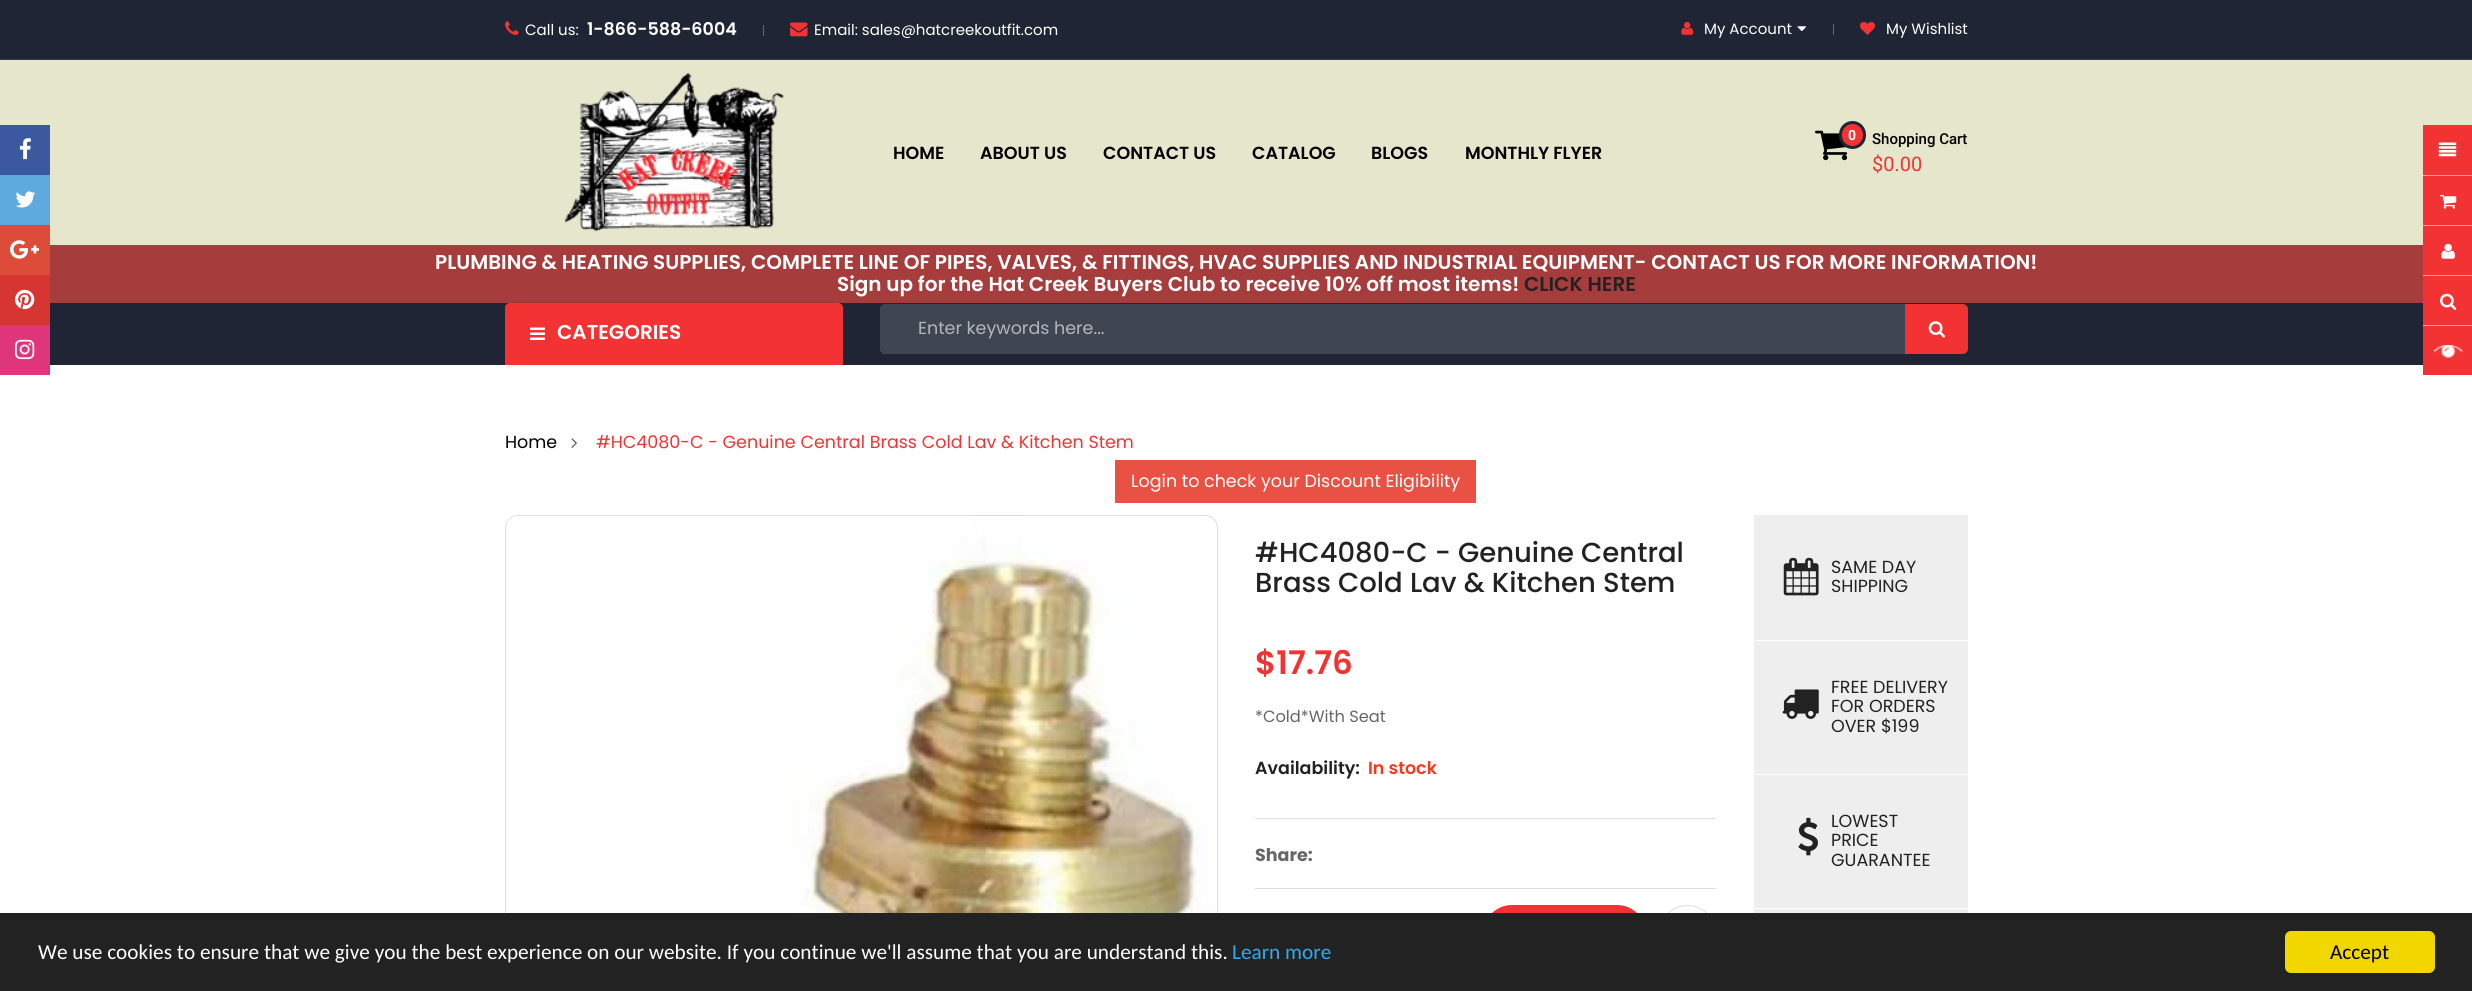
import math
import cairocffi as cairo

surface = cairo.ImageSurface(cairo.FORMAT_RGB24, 2472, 991)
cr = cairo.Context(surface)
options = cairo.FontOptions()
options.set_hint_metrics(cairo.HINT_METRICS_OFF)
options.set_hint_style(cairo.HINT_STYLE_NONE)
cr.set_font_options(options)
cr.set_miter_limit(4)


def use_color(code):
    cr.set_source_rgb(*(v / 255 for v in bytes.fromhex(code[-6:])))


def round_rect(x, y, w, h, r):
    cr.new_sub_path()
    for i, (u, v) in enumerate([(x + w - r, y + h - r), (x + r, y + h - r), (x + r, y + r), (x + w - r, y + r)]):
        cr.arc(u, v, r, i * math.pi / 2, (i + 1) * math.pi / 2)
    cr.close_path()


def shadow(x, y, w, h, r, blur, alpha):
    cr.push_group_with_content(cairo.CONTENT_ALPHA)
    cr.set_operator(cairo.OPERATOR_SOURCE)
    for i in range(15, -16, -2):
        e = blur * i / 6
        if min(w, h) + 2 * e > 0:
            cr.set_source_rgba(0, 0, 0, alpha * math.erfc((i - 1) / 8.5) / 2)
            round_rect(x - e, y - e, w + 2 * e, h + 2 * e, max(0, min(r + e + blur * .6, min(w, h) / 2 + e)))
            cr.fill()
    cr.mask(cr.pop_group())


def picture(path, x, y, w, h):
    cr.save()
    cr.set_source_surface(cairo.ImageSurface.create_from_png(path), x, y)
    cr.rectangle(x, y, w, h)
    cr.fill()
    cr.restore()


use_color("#ffffff")
cr.paint()
use_color("#e6e6cc")
cr.rectangle(0, 60, 2472, 185)
cr.fill()
use_color("#3c599f")
cr.rectangle(0, 125, 50, 50)
cr.fill()
picture("img1.png", 19, 138, 12, 22)
use_color("#5ea9dd")
cr.rectangle(0, 175, 50, 50)
cr.fill()
picture("img2.png", 15, 191, 21, 17)
use_color("#dd4b39")
cr.rectangle(0, 225, 50, 50)
cr.fill()
picture("img3.png", 10, 240, 29, 19)
use_color("#d73532")
cr.rectangle(0, 275, 50, 50)
cr.fill()
picture("img4.png", 15, 289, 20, 21)
use_color("#df357a")
cr.rectangle(0, 325, 50, 50)
cr.fill()
picture("img5.png", 15, 339, 20, 21)
use_color("#1f2534")
cr.rectangle(0, 0, 2472, 59)
cr.fill()
use_color("#363b49")
cr.rectangle(0, 59, 2472, 1)
cr.fill()
picture("img6.png", 505, 21, 14, 14)
cr.select_font_face("Poppins")
cr.set_font_size(15)
use_color("#ffffff")
cr.move_to(525, 35)
cr.show_text("Call us:")
cr.select_font_face("Poppins SemiBold")
cr.set_font_size(17.5)
cr.move_to(587, 35)
cr.show_text("1-866-588-6004")
use_color("#626671")
cr.rectangle(763, 25, 1, 11)
cr.fill()
picture("img7.png", 790, 22, 18, 15)
cr.select_font_face("Poppins")
cr.set_font_size(15)
use_color("#ffffff")
cr.move_to(814, 35)
cr.show_text("Email: sales@hatcreekoutfit.com")
picture("img8.png", 1681, 22, 12, 13)
cr.move_to(1704, 34)
cr.show_text("My Account")
picture("img9.png", 1797, 26, 9, 5)
use_color("#626671")
cr.rectangle(1833, 24, 1, 11)
cr.fill()
picture("img10.png", 1860, 22, 15, 13)
use_color("#ffffff")
cr.move_to(1886, 34)
cr.show_text("My Wishlist")
picture("img11.png", 565, 72, 219, 160)
cr.select_font_face("Poppins SemiBold")
cr.set_font_size(17.5)
use_color("#000000")
cr.move_to(893, 159)
cr.show_text("HOME")
cr.move_to(980, 159)
cr.show_text("ABOUT US")
cr.move_to(1103, 159)
cr.show_text("CONTACT US")
cr.move_to(1252, 159)
cr.show_text("CATALOG")
cr.move_to(1371, 159)
cr.show_text("BLOGS")
cr.move_to(1465, 159)
cr.show_text("MONTHLY FLYER")
picture("img12.png", 1815, 130, 33, 31)
use_color("#f33333")
round_rect(1840.5, 122.5, 24, 25, 12)
cr.fill_preserve()
use_color("#1f2534")
cr.set_line_width(3)
cr.stroke()
cr.select_font_face("Roboto", cairo.FONT_SLANT_NORMAL, cairo.FONT_WEIGHT_BOLD)
cr.set_font_size(14)
use_color("#ffffff")
cr.move_to(1848, 140)
cr.show_text("0")
cr.select_font_face("Roboto Medium")
cr.set_font_size(15)
use_color("#000000")
cr.move_to(1872, 144)
cr.show_text("Shopping Cart")
cr.select_font_face("Roboto")
cr.set_font_size(20)
use_color("#f33333")
cr.move_to(1872, 171)
cr.show_text("$0.00")
use_color("#a73c3c")
cr.rectangle(50, 245, 2373, 58)
cr.fill()
cr.select_font_face("Poppins SemiBold")
use_color("#ffffff")
cr.move_to(435, 269)
cr.show_text("PLUMBING & HEATING SUPPLIES, COMPLETE LINE OF PIPES, VALVES, & FITTINGS, HVAC SUPPLIES AND INDUSTRIAL EQUIPMENT- CONTACT US FOR MORE INFORMATION!")
cr.move_to(837, 291)
cr.show_text("Sign up for the Hat Creek Buyers Club to receive 10% off most items!")
use_color("#222222")
cr.move_to(1524, 291)
cr.show_text("CLICK HERE")
use_color("#1f2534")
cr.rectangle(50, 303, 2373, 62)
cr.fill()
use_color("#000000")
shadow(505, 303, 338, 62, 5, 2, 0.1)
use_color("#f33333")
cr.new_path()
cr.move_to(510, 303)
cr.line_to(838, 303)
cr.curve_to(841, 303, 843, 305, 843, 308)
cr.line_to(843, 365)
cr.line_to(505, 365)
cr.line_to(505, 308)
cr.curve_to(505, 305, 507, 303, 510, 303)
cr.close_path()
cr.fill()
picture("img13.png", 530, 327, 15, 13)
use_color("#ffffff")
cr.move_to(557, 339)
cr.show_text("CATEGORIES")
use_color("#404552")
round_rect(880, 304, 1088, 50, 5)
cr.fill()
cr.select_font_face("Poppins")
cr.set_font_size(17.5)
use_color("#b3b5ba")
cr.move_to(918, 334)
cr.show_text("Enter keywords here...")
use_color("#f33333")
cr.new_path()
cr.move_to(1905, 304)
cr.line_to(1962, 304)
cr.curve_to(1965.5, 304, 1968, 306.5, 1968, 310)
cr.line_to(1968, 348)
cr.curve_to(1968, 351.5, 1965.5, 354, 1962, 354)
cr.line_to(1905, 354)
cr.close_path()
cr.fill()
picture("img14.png", 1928, 321, 17, 17)
cr.rectangle(2423, 125, 49, 50)
cr.fill()
picture("img15.png", 2438, 142, 19, 15)
cr.rectangle(2423, 176, 49, 49)
cr.fill()
use_color("#f99999")
cr.rectangle(2423, 175, 49, 1)
cr.fill()
picture("img16.png", 2440, 195, 17, 14)
use_color("#f33333")
cr.rectangle(2423, 226, 49, 49)
cr.fill()
use_color("#f99999")
cr.rectangle(2423, 225, 49, 1)
cr.fill()
picture("img17.png", 2441, 243, 14, 16)
use_color("#f33333")
cr.rectangle(2423, 276, 49, 49)
cr.fill()
use_color("#f99999")
cr.rectangle(2423, 275, 49, 1)
cr.fill()
picture("img18.png", 2440, 293, 17, 17)
use_color("#f33333")
cr.rectangle(2423, 326, 49, 49)
cr.fill()
use_color("#f99999")
cr.rectangle(2423, 325, 49, 1)
cr.fill()
picture("img19.png", 2433, 345, 30, 13)
use_color("#000000")
cr.move_to(505, 448)
cr.show_text("Home")
picture("img20.png", 571, 438, 6, 10)
use_color("#f33333")
cr.move_to(596, 448)
cr.show_text("#HC4080-C - Genuine Central Brass Cold Lav & Kitchen Stem")
use_color("#e95144")
cr.rectangle(1115, 460, 361, 43)
cr.fill()
use_color("#ffffff")
cr.move_to(1131, 487)
cr.show_text("Login to check your Discount Eligibility")
round_rect(505.5, 515.5, 712, 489, 12.5)
use_color("#dddddd")
cr.set_line_width(1)
cr.stroke()
picture("img21.png", 506, 516, 710, 397)
cr.select_font_face("Poppins Medium")
cr.set_font_size(27.5)
use_color("#222222")
cr.move_to(1255, 562)
cr.show_text("#HC4080-C - Genuine Central")
cr.move_to(1255, 592)
cr.show_text("Brass Cold Lav & Kitchen Stem")
cr.select_font_face("Poppins SemiBold")
cr.set_font_size(32.5)
use_color("#f33333")
cr.move_to(1255, 674)
cr.show_text("$17.76")
cr.select_font_face("Poppins")
cr.set_font_size(16.25)
use_color("#666666")
cr.move_to(1255, 722)
cr.show_text("*Cold*With Seat")
cr.select_font_face("Poppins SemiBold")
cr.set_font_size(17.5)
use_color("#222222")
cr.move_to(1255, 774)
cr.show_text("Availability:")
use_color("#fa381d")
cr.move_to(1368, 774)
cr.show_text("In stock")
use_color("#dddddd")
cr.rectangle(1255, 818, 461, 1)
cr.fill()
cr.rectangle(1255, 888, 461, 1)
cr.fill()
cr.select_font_face("Poppins", cairo.FONT_SLANT_NORMAL, cairo.FONT_WEIGHT_BOLD)
use_color("#666666")
cr.move_to(1255, 861)
cr.show_text("Share:")
use_color("#f33333")
round_rect(1483, 905, 163, 58, 29)
cr.fill()
round_rect(1659.5, 905.5, 56, 57, 28)
use_color("#dddddd")
cr.stroke()
use_color("#eeeeee")
cr.rectangle(1754, 515, 214, 398)
cr.fill()
use_color("#ffffff")
cr.rectangle(1754, 640, 214, 1)
cr.fill()
picture("img22.png", 1783, 557, 36, 39)
cr.select_font_face("Poppins")
use_color("#222222")
cr.move_to(1831, 573)
cr.show_text("SAME DAY")
cr.move_to(1831, 592)
cr.show_text("SHIPPING")
use_color("#ffffff")
cr.rectangle(1754, 774, 214, 1)
cr.fill()
picture("img23.png", 1782, 689, 37, 30)
use_color("#222222")
cr.move_to(1831, 693)
cr.show_text("FREE DELIVERY")
cr.move_to(1831, 712)
cr.show_text("FOR ORDERS")
cr.move_to(1831, 732)
cr.show_text("OVER $199")
use_color("#ffffff")
cr.rectangle(1754, 908, 214, 1)
cr.fill()
picture("img24.png", 1798, 817, 20, 39)
use_color("#222222")
cr.move_to(1831, 827)
cr.show_text("LOWEST")
cr.move_to(1831, 846)
cr.show_text("PRICE")
cr.move_to(1831, 866)
cr.show_text("GUARANTEE")
cr.rectangle(0, 913, 2472, 78)
cr.fill()
cr.select_font_face("Carlito")
cr.set_font_size(21.25)
use_color("#ffffff")
cr.move_to(38, 959)
cr.show_text("We use cookies to ensure that we give you the best experience on our website. If you continue we'll assume that you are understand this.")
use_color("#31a8f0")
cr.move_to(1232, 959)
cr.show_text("Learn more")
use_color("#f1d600")
round_rect(2285, 931, 150, 42, 6)
cr.fill()
use_color("#000000")
cr.move_to(2330, 959)
cr.show_text("Accept")
surface.write_to_png("result.png")
